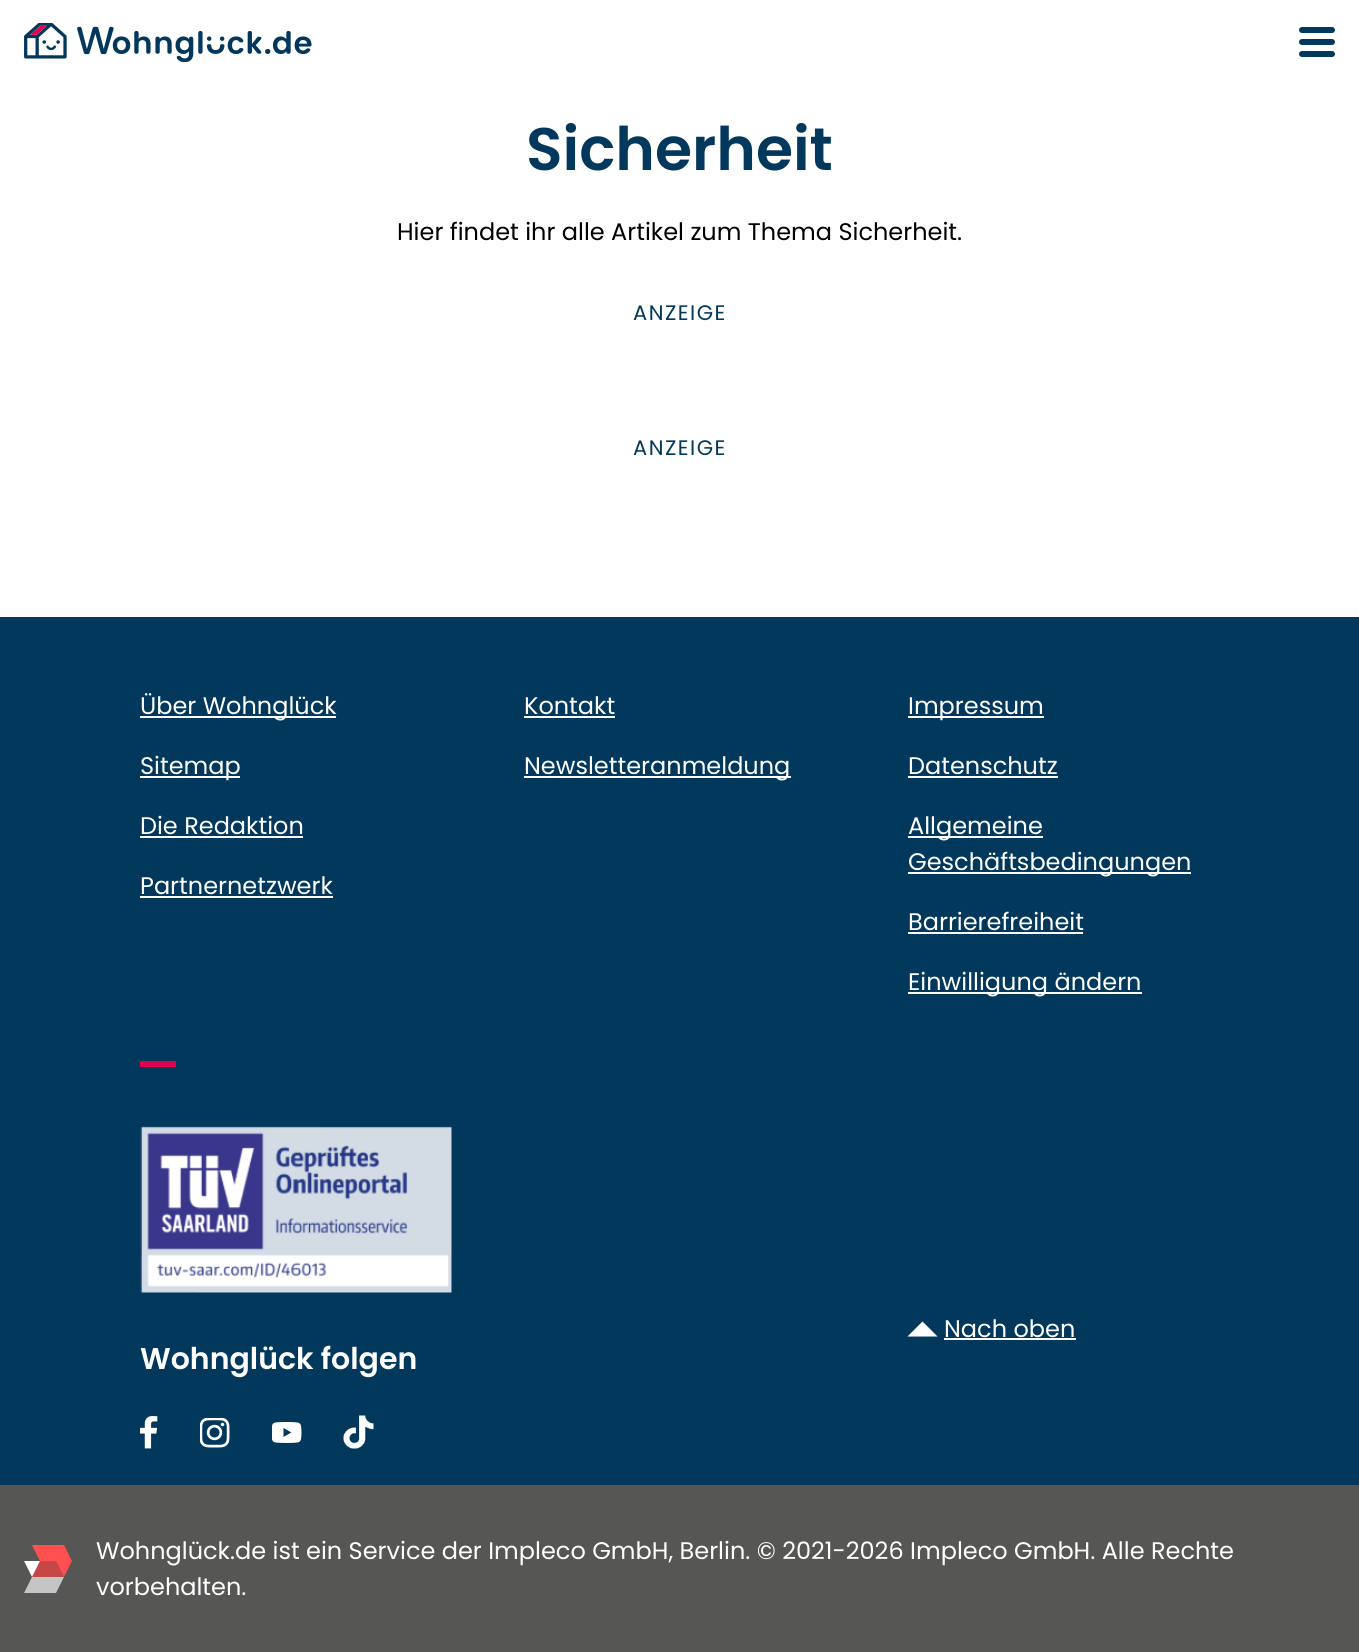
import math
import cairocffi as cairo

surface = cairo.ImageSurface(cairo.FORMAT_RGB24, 1359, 1652)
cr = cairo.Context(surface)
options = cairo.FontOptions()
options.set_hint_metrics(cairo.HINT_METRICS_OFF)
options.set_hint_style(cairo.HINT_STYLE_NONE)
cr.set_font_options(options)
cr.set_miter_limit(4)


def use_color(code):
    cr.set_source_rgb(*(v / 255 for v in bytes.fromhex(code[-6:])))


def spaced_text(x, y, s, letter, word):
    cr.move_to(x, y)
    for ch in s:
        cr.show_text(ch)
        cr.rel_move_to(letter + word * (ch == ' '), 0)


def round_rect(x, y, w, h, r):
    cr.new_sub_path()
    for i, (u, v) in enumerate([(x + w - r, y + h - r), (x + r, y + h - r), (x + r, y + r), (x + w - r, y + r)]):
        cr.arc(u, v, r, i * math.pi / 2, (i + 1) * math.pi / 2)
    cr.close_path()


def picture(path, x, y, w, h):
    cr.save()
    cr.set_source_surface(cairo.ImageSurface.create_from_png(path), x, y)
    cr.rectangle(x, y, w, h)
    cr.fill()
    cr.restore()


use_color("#ffffff")
cr.paint()
picture("img1.png", 24, 23, 288, 39)
use_color("#02385c")
round_rect(1299, 27, 36, 6, 3)
cr.fill()
round_rect(1299, 39, 36, 6, 3)
cr.fill()
round_rect(1299, 51, 36, 6, 3)
cr.fill()
cr.select_font_face("Poppins SemiBold")
cr.set_font_size(60)
cr.move_to(526, 170)
cr.show_text("Sicherheit")
cr.select_font_face("Poppins")
cr.set_font_size(24)
use_color("#000000")
cr.move_to(397, 240)
cr.show_text("Hier findet ihr alle Artikel zum Thema Sicherheit.")
cr.set_font_size(21)
use_color("#02385c")
spaced_text(633, 320, "ANZEIGE", 1.5, 0)
spaced_text(633, 455, "ANZEIGE", 1.5, 0)
cr.rectangle(0, 617, 1359, 868)
cr.fill()
use_color("#ffffff")
cr.rectangle(140, 716, 196, 2)
cr.fill()
cr.set_font_size(24)
cr.move_to(140, 714)
cr.show_text("Über Wohnglück")
cr.rectangle(140, 776, 100, 2)
cr.fill()
cr.move_to(140, 774)
cr.show_text("Sitemap")
cr.move_to(140, 834)
cr.show_text("Die Redaktion")
cr.rectangle(140, 836, 163, 2)
cr.fill()
cr.move_to(140, 894)
cr.show_text("Partnernetzwerk")
cr.rectangle(140, 896, 193, 2)
cr.fill()
cr.move_to(524, 714)
cr.show_text("Kontakt")
cr.rectangle(524, 716, 91, 2)
cr.fill()
cr.rectangle(524, 776, 267, 2)
cr.fill()
cr.move_to(524, 774)
cr.show_text("Newsletteranmeldung")
cr.rectangle(908, 716, 136, 2)
cr.fill()
cr.move_to(908, 714)
cr.show_text("Impressum")
cr.move_to(908, 774)
cr.show_text("Datenschutz")
cr.rectangle(908, 776, 150, 2)
cr.fill()
cr.rectangle(908, 836, 135, 2)
cr.fill()
cr.move_to(908, 834)
cr.show_text("Allgemeine")
cr.rectangle(908, 872, 283, 2)
cr.fill()
cr.move_to(908, 870)
cr.show_text("Geschäftsbedingungen")
cr.move_to(908, 930)
cr.show_text("Barrierefreiheit")
cr.rectangle(908, 932, 175, 2)
cr.fill()
cr.rectangle(908, 992, 234, 2)
cr.fill()
cr.move_to(908, 990)
cr.show_text("Einwilligung ändern")
use_color("#e40051")
cr.rectangle(140, 1061, 36, 6)
cr.fill()
picture("img2.png", 140, 1126, 312, 167)
use_color("#ffffff")
cr.set_fill_rule(cairo.FILL_RULE_EVEN_ODD)
cr.new_path()
cr.move_to(922.5, 1336.5)
cr.line_to(907.5, 1336.5)
cr.line_to(922.5, 1321.5)
cr.line_to(937.5, 1336.5)
cr.close_path()
cr.fill()
cr.move_to(944, 1337)
cr.show_text("Nach oben")
cr.rectangle(944, 1338, 132, 2)
cr.fill()
cr.select_font_face("Poppins SemiBold")
cr.set_font_size(30)
cr.move_to(140, 1369)
cr.show_text("Wohnglück folgen")
picture("img3.png", 140, 1416, 18, 33)
picture("img4.png", 200, 1418, 30, 30)
picture("img5.png", 272, 1422, 30, 21)
picture("img6.png", 343, 1415, 31, 34)
use_color("#565655")
cr.rectangle(0, 1485, 1359, 167)
cr.fill()
picture("img7.png", 24, 1545, 48, 48)
cr.select_font_face("Poppins")
cr.set_font_size(24)
use_color("#ffffff")
cr.move_to(96, 1559)
cr.show_text("Wohnglück.de ist ein Service der Impleco GmbH, Berlin. © 2021-2026 Impleco GmbH. Alle Rechte")
cr.move_to(96, 1595)
cr.show_text("vorbehalten.")
surface.write_to_png("result.png")
